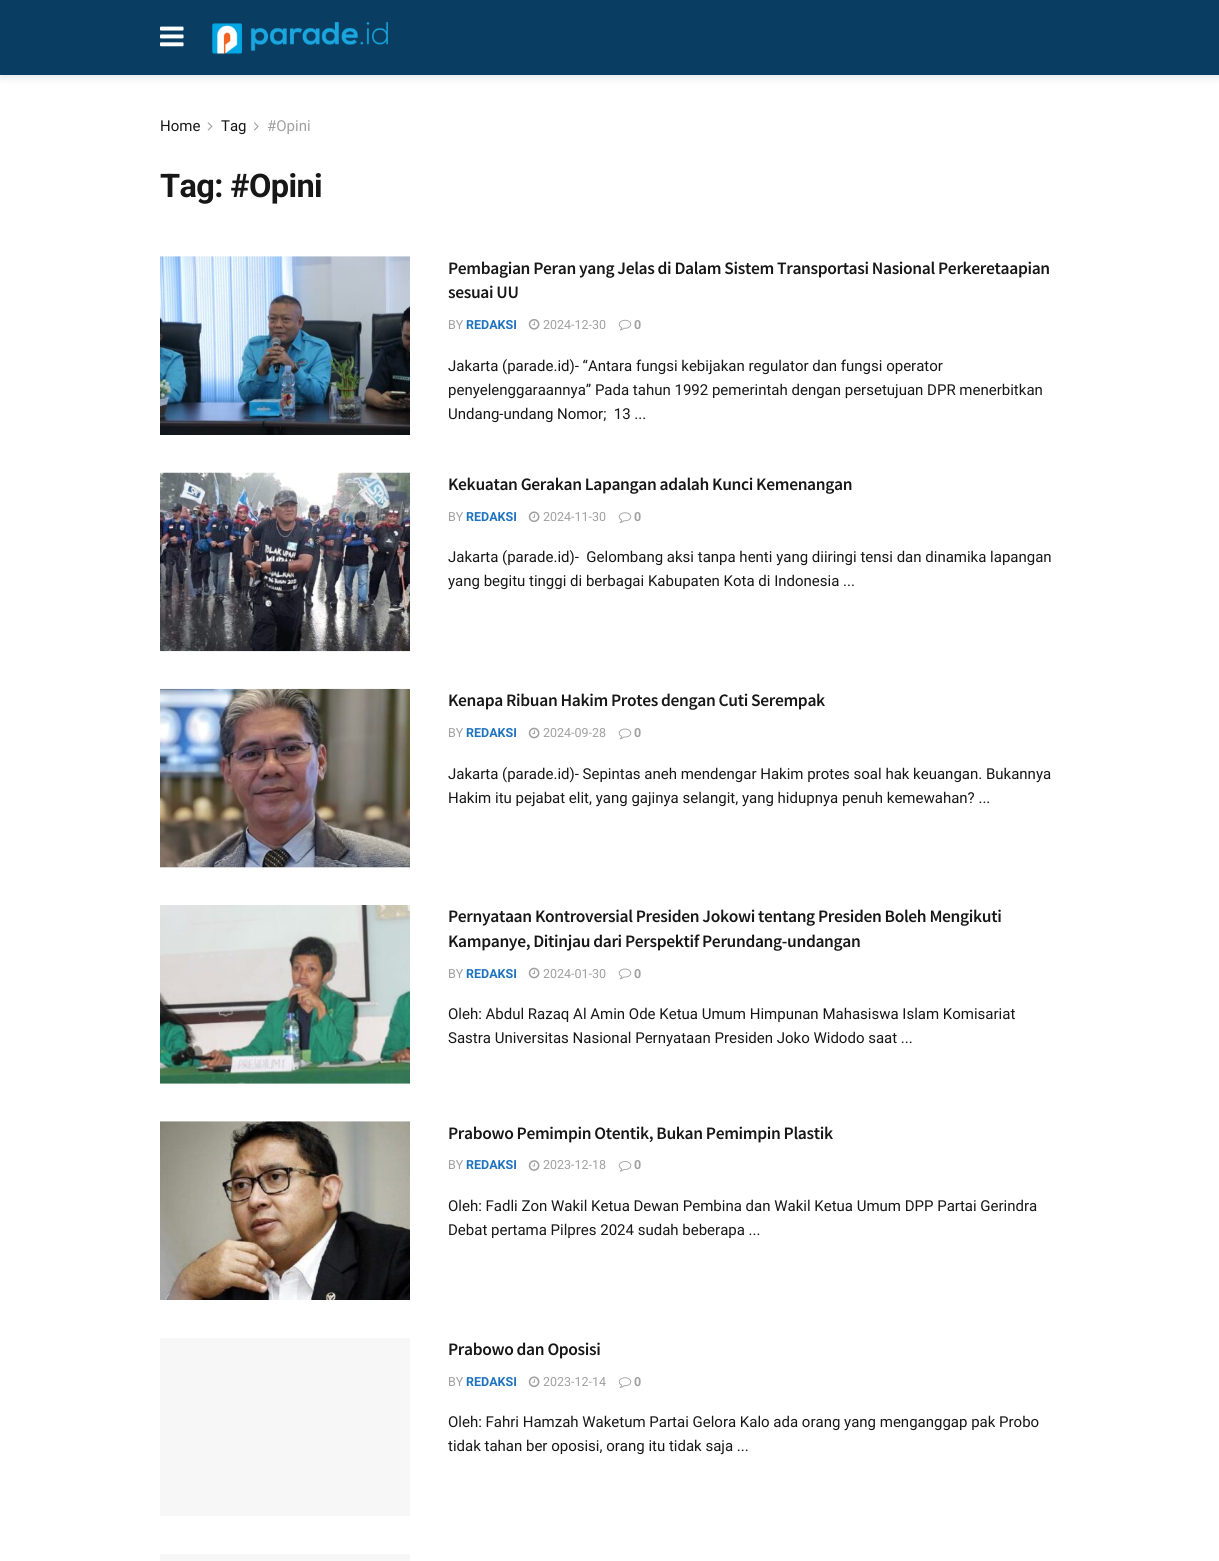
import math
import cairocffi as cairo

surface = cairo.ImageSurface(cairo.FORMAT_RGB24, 1219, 1561)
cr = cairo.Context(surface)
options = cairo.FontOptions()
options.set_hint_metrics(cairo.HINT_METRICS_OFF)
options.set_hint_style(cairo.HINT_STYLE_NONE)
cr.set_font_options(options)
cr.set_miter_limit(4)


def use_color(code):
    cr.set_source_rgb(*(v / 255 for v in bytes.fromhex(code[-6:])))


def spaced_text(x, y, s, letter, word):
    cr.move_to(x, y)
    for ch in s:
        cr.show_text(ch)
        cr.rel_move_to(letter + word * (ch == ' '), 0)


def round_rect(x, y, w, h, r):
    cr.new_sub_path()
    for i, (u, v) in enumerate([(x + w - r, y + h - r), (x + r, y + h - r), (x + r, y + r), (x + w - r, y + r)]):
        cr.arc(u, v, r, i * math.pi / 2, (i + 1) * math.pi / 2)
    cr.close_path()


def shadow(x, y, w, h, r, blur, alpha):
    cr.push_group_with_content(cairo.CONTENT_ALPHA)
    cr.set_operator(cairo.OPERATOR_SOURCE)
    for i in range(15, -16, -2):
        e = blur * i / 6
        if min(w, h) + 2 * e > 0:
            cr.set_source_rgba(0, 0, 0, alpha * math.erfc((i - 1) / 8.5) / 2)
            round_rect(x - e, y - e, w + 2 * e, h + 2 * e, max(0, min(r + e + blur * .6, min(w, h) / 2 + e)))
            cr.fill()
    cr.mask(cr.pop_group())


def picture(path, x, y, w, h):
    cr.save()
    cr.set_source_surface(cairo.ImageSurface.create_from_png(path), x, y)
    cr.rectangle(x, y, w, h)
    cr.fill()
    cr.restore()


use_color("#ffffff")
cr.paint()
use_color("#000000")
shadow(0, 3, 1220, 75, 0, 4, 0.1)
use_color("#0a3d62")
cr.rectangle(0, 0, 1219, 75)
cr.fill()
picture("img1.png", 160, 26, 24, 21)
picture("img2.png", 212, 22, 176, 33)
cr.select_font_face("Roboto")
cr.set_font_size(15)
use_color("#171717")
cr.move_to(160, 131)
cr.show_text("Home")
picture("img3.png", 207, 122, 6, 9)
cr.move_to(221, 131)
cr.show_text("Tag")
picture("img4.png", 254, 122, 5, 9)
use_color("#a0a0a0")
cr.move_to(267, 131)
cr.show_text("#Opini")
cr.select_font_face("Roboto", cairo.FONT_SLANT_NORMAL, cairo.FONT_WEIGHT_BOLD)
cr.set_font_size(32.5)
use_color("#171717")
spaced_text(160, 197, "Tag: #Opini", -0.6, 0)
use_color("#f7f7f7")
cr.rectangle(160, 256, 250, 1)
cr.fill()
picture("img5.png", 160, 256, 250, 179)
cr.select_font_face("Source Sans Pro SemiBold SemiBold")
cr.set_font_size(17.5)
use_color("#171717")
spaced_text(448, 274, "Pembagian Peran yang Jelas di Dalam Sistem Transportasi Nasional Perkeretaapian", -0.35, 0)
spaced_text(448, 298, "sesuai UU", -0.35, 0)
cr.select_font_face("Roboto")
cr.set_font_size(12.5)
use_color("#a0a0a0")
cr.move_to(448, 329)
cr.show_text("BY")
cr.select_font_face("Roboto", cairo.FONT_SLANT_NORMAL, cairo.FONT_WEIGHT_BOLD)
use_color("#1e73be")
cr.move_to(466, 329)
cr.show_text("REDAKSI")
picture("img6.png", 528, 319, 12, 11)
cr.select_font_face("Roboto")
use_color("#a0a0a0")
cr.move_to(543, 329)
cr.show_text("2024-12-30")
picture("img7.png", 618, 319, 14, 12)
cr.select_font_face("Roboto", cairo.FONT_SLANT_NORMAL, cairo.FONT_WEIGHT_BOLD)
cr.move_to(634, 329)
cr.show_text("0")
cr.select_font_face("Roboto")
cr.set_font_size(15)
use_color("#171717")
cr.move_to(448, 371)
cr.show_text("Jakarta (parade.id)- “Antara fungsi kebijakan regulator dan fungsi operator")
cr.move_to(448, 395)
cr.show_text("penyelenggaraannya” Pada tahun 1992 pemerintah dengan persetujuan DPR menerbitkan")
cr.move_to(448, 419)
cr.show_text("Undang-undang Nomor;  13 ...")
picture("img8.png", 160, 472, 250, 180)
cr.select_font_face("Source Sans Pro SemiBold SemiBold")
cr.set_font_size(17.5)
spaced_text(448, 490, "Kekuatan Gerakan Lapangan adalah Kunci Kemenangan", -0.35, 0)
cr.select_font_face("Roboto")
cr.set_font_size(12.5)
use_color("#a0a0a0")
cr.move_to(448, 521)
cr.show_text("BY")
cr.select_font_face("Roboto", cairo.FONT_SLANT_NORMAL, cairo.FONT_WEIGHT_BOLD)
use_color("#1e73be")
cr.move_to(466, 521)
cr.show_text("REDAKSI")
picture("img9.png", 528, 511, 12, 12)
cr.select_font_face("Roboto")
use_color("#a0a0a0")
cr.move_to(543, 521)
cr.show_text("2024-11-30")
picture("img10.png", 618, 512, 14, 11)
cr.select_font_face("Roboto", cairo.FONT_SLANT_NORMAL, cairo.FONT_WEIGHT_BOLD)
cr.move_to(634, 521)
cr.show_text("0")
cr.select_font_face("Roboto")
cr.set_font_size(15)
use_color("#171717")
cr.move_to(448, 562)
cr.show_text("Jakarta (parade.id)-  Gelombang aksi tanpa henti yang diiringi tensi dan dinamika lapangan")
cr.move_to(448, 586)
cr.show_text("yang begitu tinggi di berbagai Kabupaten Kota di Indonesia ...")
use_color("#f7f7f7")
cr.rectangle(160, 867, 250, 1)
cr.fill()
picture("img11.png", 160, 688, 250, 180)
cr.select_font_face("Source Sans Pro SemiBold SemiBold")
cr.set_font_size(17.5)
use_color("#171717")
spaced_text(448, 706, "Kenapa Ribuan Hakim Protes dengan Cuti Serempak", -0.35, 0)
cr.select_font_face("Roboto")
cr.set_font_size(12.5)
use_color("#a0a0a0")
cr.move_to(448, 737)
cr.show_text("BY")
cr.select_font_face("Roboto", cairo.FONT_SLANT_NORMAL, cairo.FONT_WEIGHT_BOLD)
use_color("#1e73be")
cr.move_to(466, 737)
cr.show_text("REDAKSI")
picture("img12.png", 528, 727, 12, 12)
cr.select_font_face("Roboto")
use_color("#a0a0a0")
cr.move_to(543, 737)
cr.show_text("2024-09-28")
picture("img13.png", 618, 728, 14, 12)
cr.select_font_face("Roboto", cairo.FONT_SLANT_NORMAL, cairo.FONT_WEIGHT_BOLD)
cr.move_to(634, 737)
cr.show_text("0")
cr.select_font_face("Roboto")
cr.set_font_size(15)
use_color("#171717")
cr.move_to(448, 779)
cr.show_text("Jakarta (parade.id)- Sepintas aneh mendengar Hakim protes soal hak keuangan. Bukannya")
cr.move_to(448, 803)
cr.show_text("Hakim itu pejabat elit, yang gajinya selangit, yang hidupnya penuh kemewahan? ...")
use_color("#f7f7f7")
cr.rectangle(160, 1083, 250, 1)
cr.fill()
picture("img14.png", 160, 905, 250, 179)
cr.select_font_face("Source Sans Pro SemiBold SemiBold")
cr.set_font_size(17.5)
use_color("#171717")
spaced_text(448, 922, "Pernyataan Kontroversial Presiden Jokowi tentang Presiden Boleh Mengikuti", -0.35, 0)
spaced_text(448, 947, "Kampanye, Ditinjau dari Perspektif Perundang-undangan", -0.35, 0)
cr.select_font_face("Roboto")
cr.set_font_size(12.5)
use_color("#a0a0a0")
cr.move_to(448, 978)
cr.show_text("BY")
cr.select_font_face("Roboto", cairo.FONT_SLANT_NORMAL, cairo.FONT_WEIGHT_BOLD)
use_color("#1e73be")
cr.move_to(466, 978)
cr.show_text("REDAKSI")
picture("img12.png", 528, 967, 12, 12)
cr.select_font_face("Roboto")
use_color("#a0a0a0")
cr.move_to(543, 978)
cr.show_text("2024-01-30")
picture("img13.png", 618, 968, 14, 12)
cr.select_font_face("Roboto", cairo.FONT_SLANT_NORMAL, cairo.FONT_WEIGHT_BOLD)
cr.move_to(634, 978)
cr.show_text("0")
cr.select_font_face("Roboto")
cr.set_font_size(15)
use_color("#171717")
cr.move_to(448, 1019)
cr.show_text("Oleh: Abdul Razaq Al Amin Ode Ketua Umum Himpunan Mahasiswa Islam Komisariat")
cr.move_to(448, 1043)
cr.show_text("Sastra Universitas Nasional Pernyataan Presiden Joko Widodo saat ...")
use_color("#f7f7f7")
cr.rectangle(160, 1121, 250, 1)
cr.fill()
picture("img15.png", 160, 1121, 250, 179)
cr.select_font_face("Source Sans Pro SemiBold SemiBold")
cr.set_font_size(17.5)
use_color("#171717")
spaced_text(448, 1139, "Prabowo Pemimpin Otentik, Bukan Pemimpin Plastik", -0.35, 0)
cr.select_font_face("Roboto")
cr.set_font_size(12.5)
use_color("#a0a0a0")
cr.move_to(448, 1169)
cr.show_text("BY")
cr.select_font_face("Roboto", cairo.FONT_SLANT_NORMAL, cairo.FONT_WEIGHT_BOLD)
use_color("#1e73be")
cr.move_to(466, 1169)
cr.show_text("REDAKSI")
picture("img16.png", 528, 1160, 12, 11)
cr.select_font_face("Roboto")
use_color("#a0a0a0")
cr.move_to(543, 1169)
cr.show_text("2023-12-18")
picture("img17.png", 618, 1161, 14, 11)
cr.select_font_face("Roboto", cairo.FONT_SLANT_NORMAL, cairo.FONT_WEIGHT_BOLD)
cr.move_to(634, 1169)
cr.show_text("0")
cr.select_font_face("Roboto")
cr.set_font_size(15)
use_color("#171717")
cr.move_to(448, 1211)
cr.show_text("Oleh: Fadli Zon Wakil Ketua Dewan Pembina dan Wakil Ketua Umum DPP Partai Gerindra")
cr.move_to(448, 1235)
cr.show_text("Debat pertama Pilpres 2024 sudah beberapa ...")
use_color("#f7f7f7")
cr.rectangle(160, 1338, 250, 178)
cr.fill()
cr.select_font_face("Source Sans Pro SemiBold SemiBold")
cr.set_font_size(17.5)
use_color("#171717")
spaced_text(448, 1355, "Prabowo dan Oposisi", -0.35, 0)
cr.select_font_face("Roboto")
cr.set_font_size(12.5)
use_color("#a0a0a0")
cr.move_to(448, 1386)
cr.show_text("BY")
cr.select_font_face("Roboto", cairo.FONT_SLANT_NORMAL, cairo.FONT_WEIGHT_BOLD)
use_color("#1e73be")
cr.move_to(466, 1386)
cr.show_text("REDAKSI")
picture("img9.png", 528, 1376, 12, 12)
cr.select_font_face("Roboto")
use_color("#a0a0a0")
cr.move_to(543, 1386)
cr.show_text("2023-12-14")
picture("img10.png", 618, 1377, 14, 11)
cr.select_font_face("Roboto", cairo.FONT_SLANT_NORMAL, cairo.FONT_WEIGHT_BOLD)
cr.move_to(634, 1386)
cr.show_text("0")
cr.select_font_face("Roboto")
cr.set_font_size(15)
use_color("#171717")
cr.move_to(448, 1427)
cr.show_text("Oleh: Fahri Hamzah Waketum Partai Gelora Kalo ada orang yang menganggap pak Probo")
cr.move_to(448, 1451)
cr.show_text("tidak tahan ber oposisi, orang itu tidak saja ...")
use_color("#f7f7f7")
cr.rectangle(160, 1554, 250, 7)
cr.fill()
surface.write_to_png("result.png")
